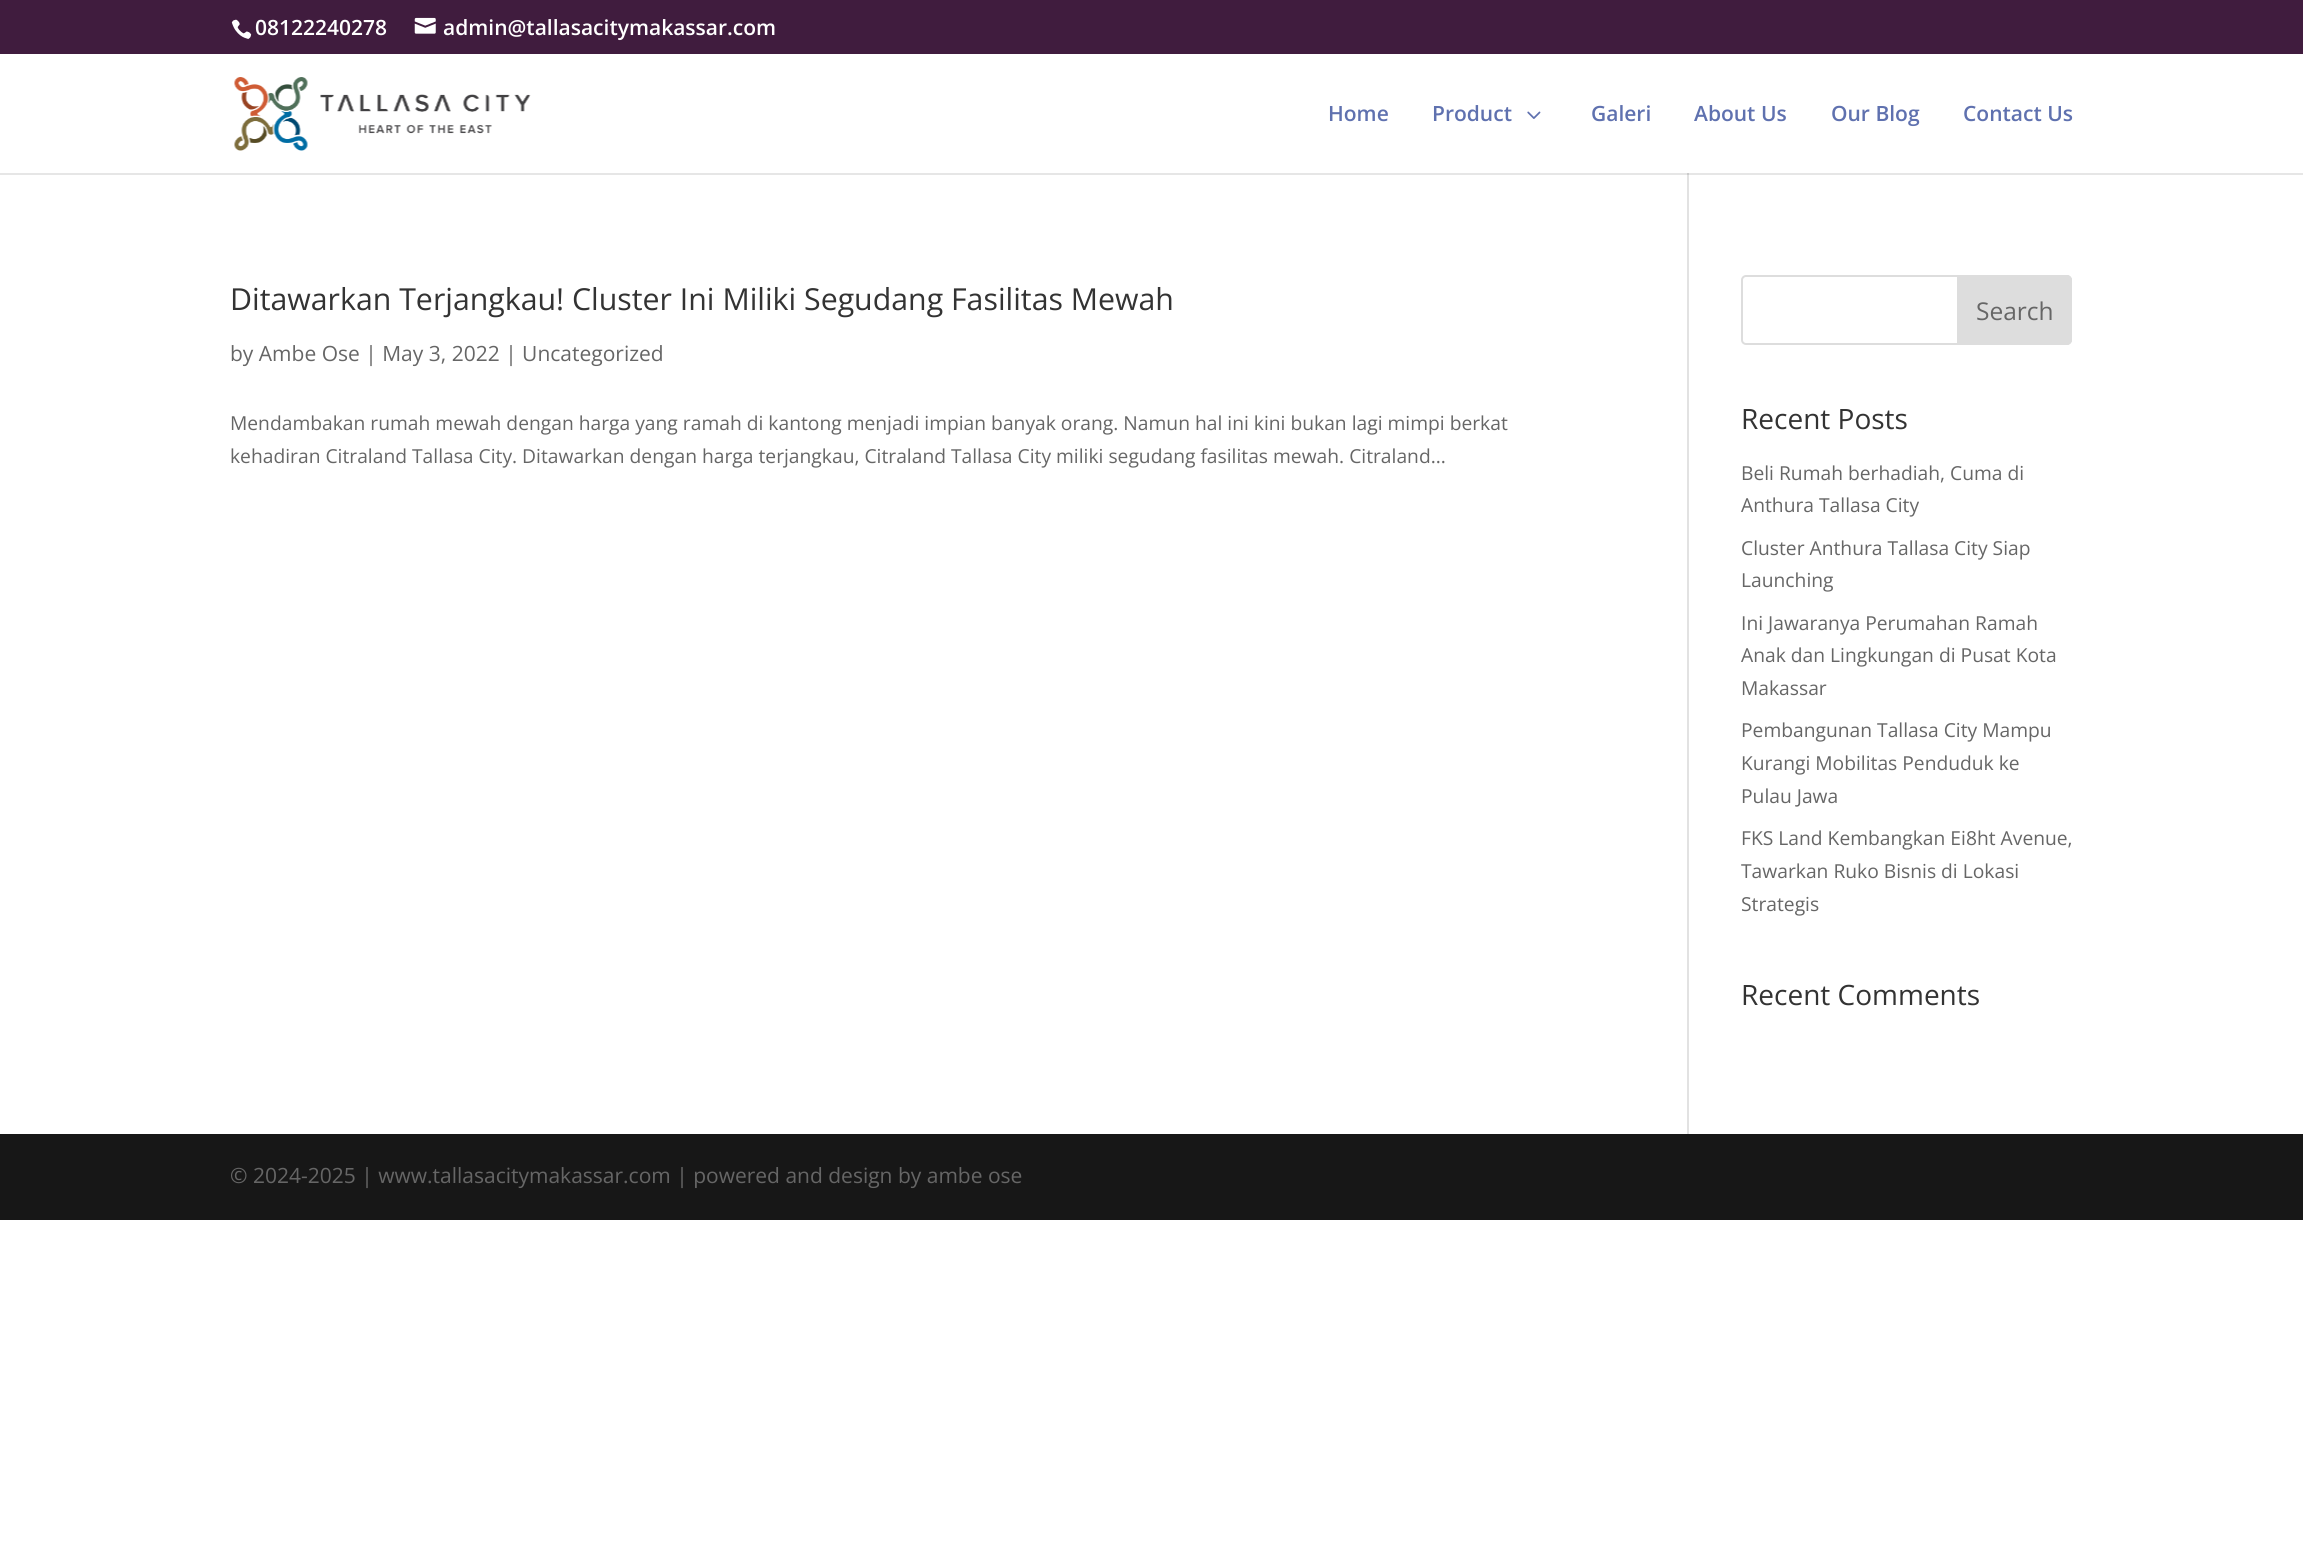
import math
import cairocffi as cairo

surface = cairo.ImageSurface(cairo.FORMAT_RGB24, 2303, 1554)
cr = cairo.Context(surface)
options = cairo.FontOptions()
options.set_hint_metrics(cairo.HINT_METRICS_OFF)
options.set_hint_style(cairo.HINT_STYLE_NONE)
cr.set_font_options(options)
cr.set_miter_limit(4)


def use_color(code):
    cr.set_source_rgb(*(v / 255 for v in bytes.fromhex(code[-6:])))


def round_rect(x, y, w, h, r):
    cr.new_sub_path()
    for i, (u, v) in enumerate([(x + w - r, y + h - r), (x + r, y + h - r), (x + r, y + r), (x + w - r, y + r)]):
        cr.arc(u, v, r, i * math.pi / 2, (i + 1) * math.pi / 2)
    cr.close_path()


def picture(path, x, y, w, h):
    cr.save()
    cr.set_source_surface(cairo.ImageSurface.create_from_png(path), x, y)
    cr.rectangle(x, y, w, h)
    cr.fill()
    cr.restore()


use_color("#ffffff")
cr.paint()
use_color("#e6e6e6")
cr.rectangle(0, 173, 2303, 2)
cr.fill()
use_color("#401c3e")
cr.rectangle(0, 0, 2303, 54)
cr.fill()
picture("img1.png", 231, 19, 21, 20)
cr.select_font_face("Open Sans SemiBold")
cr.set_font_size(21)
use_color("#ffffff")
cr.move_to(255, 35)
cr.show_text("08122240278")
picture("img2.png", 414, 17, 22, 17)
cr.move_to(443, 35)
cr.show_text("admin@tallasacitymakassar.com")
picture("img3.png", 234, 77, 297, 74)
use_color("#5f71af")
cr.move_to(1328, 121)
cr.show_text("Home")
cr.move_to(1432, 121)
cr.show_text("Product")
picture("img4.png", 1527, 111, 14, 8)
cr.move_to(1591, 121)
cr.show_text("Galeri")
cr.move_to(1694, 121)
cr.show_text("About Us")
cr.move_to(1831, 121)
cr.show_text("Our Blog")
cr.move_to(1963, 121)
cr.show_text("Contact Us")
use_color("#e2e2e2")
cr.rectangle(1687, 173, 2, 961)
cr.fill()
use_color("#cbcbcb")
cr.rectangle(1687, 173, 2, 2)
cr.fill()
cr.select_font_face("Open Sans")
cr.set_font_size(30.3)
use_color("#333333")
cr.move_to(230, 310)
cr.show_text("Ditawarkan Terjangkau! Cluster Ini Miliki Segudang Fasilitas Mewah")
cr.set_font_size(21)
use_color("#666666")
cr.move_to(230, 361)
cr.show_text("by Ambe Ose | May 3, 2022 | Uncategorized")
cr.set_font_size(19.25)
cr.move_to(230, 430)
cr.show_text("Mendambakan rumah mewah dengan harga yang ramah di kantong menjadi impian banyak orang. Namun hal ini kini bukan lagi mimpi berkat")
cr.move_to(230, 463)
cr.show_text("kehadiran Citraland Tallasa City. Ditawarkan dengan harga terjangkau, Citraland Tallasa City miliki segudang fasilitas mewah. Citraland...")
round_rect(1742, 276, 329, 68, 4)
use_color("#dddddd")
cr.stroke()
cr.new_path()
cr.move_to(1958, 276)
cr.line_to(2067, 276)
cr.curve_to(2069, 276, 2071, 278, 2071, 280)
cr.line_to(2071, 340)
cr.curve_to(2071, 342, 2069, 344, 2067, 344)
cr.line_to(1958, 344)
cr.close_path()
cr.fill_preserve()
cr.stroke()
cr.set_font_size(24.5)
use_color("#666666")
cr.move_to(1976, 320)
cr.show_text("Search")
cr.set_font_size(28)
use_color("#333333")
cr.move_to(1741, 429)
cr.show_text("Recent Posts")
cr.set_font_size(19.25)
use_color("#666666")
cr.move_to(1741, 480)
cr.show_text("Beli Rumah berhadiah, Cuma di")
cr.move_to(1741, 512)
cr.show_text("Anthura Tallasa City")
cr.move_to(1741, 555)
cr.show_text("Cluster Anthura Tallasa City Siap")
cr.move_to(1741, 587)
cr.show_text("Launching")
cr.move_to(1741, 630)
cr.show_text("Ini Jawaranya Perumahan Ramah")
cr.move_to(1741, 662)
cr.show_text("Anak dan Lingkungan di Pusat Kota")
cr.move_to(1741, 695)
cr.show_text("Makassar")
cr.move_to(1741, 737)
cr.show_text("Pembangunan Tallasa City Mampu")
cr.move_to(1741, 770)
cr.show_text("Kurangi Mobilitas Penduduk ke")
cr.move_to(1741, 803)
cr.show_text("Pulau Jawa")
cr.move_to(1741, 845)
cr.show_text("FKS Land Kembangkan Ei8ht Avenue,")
cr.move_to(1741, 878)
cr.show_text("Tawarkan Ruko Bisnis di Lokasi")
cr.move_to(1741, 911)
cr.show_text("Strategis")
cr.set_font_size(28)
use_color("#333333")
cr.move_to(1741, 1005)
cr.show_text("Recent Comments")
use_color("#171717")
cr.rectangle(0, 1134, 2303, 86)
cr.fill()
cr.set_font_size(21)
use_color("#666666")
cr.move_to(230, 1183)
cr.show_text("© 2024-2025 | www.tallasacitymakassar.com | powered and design by ambe ose")
surface.write_to_png("result.png")
